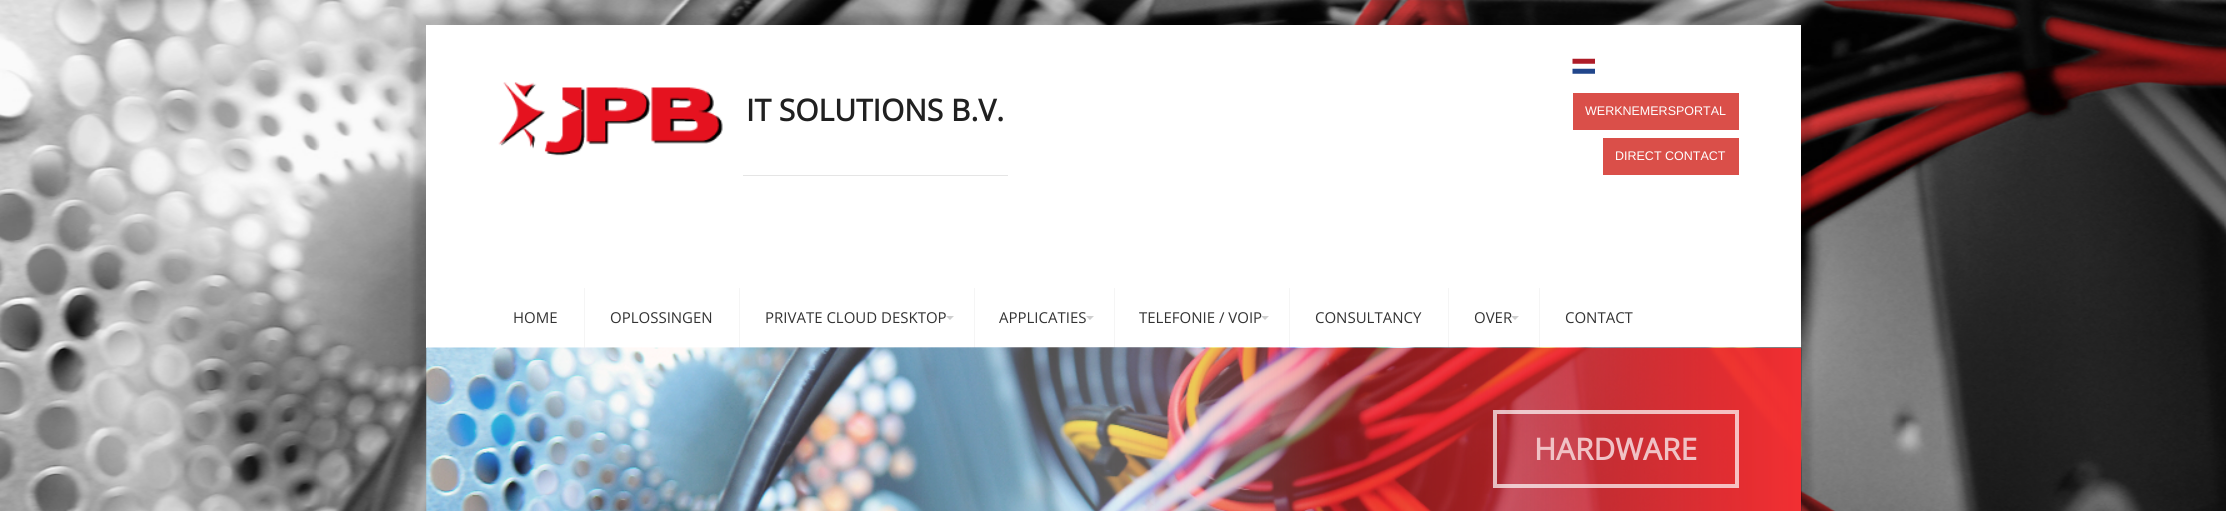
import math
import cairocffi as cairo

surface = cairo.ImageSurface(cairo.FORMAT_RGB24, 2226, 511)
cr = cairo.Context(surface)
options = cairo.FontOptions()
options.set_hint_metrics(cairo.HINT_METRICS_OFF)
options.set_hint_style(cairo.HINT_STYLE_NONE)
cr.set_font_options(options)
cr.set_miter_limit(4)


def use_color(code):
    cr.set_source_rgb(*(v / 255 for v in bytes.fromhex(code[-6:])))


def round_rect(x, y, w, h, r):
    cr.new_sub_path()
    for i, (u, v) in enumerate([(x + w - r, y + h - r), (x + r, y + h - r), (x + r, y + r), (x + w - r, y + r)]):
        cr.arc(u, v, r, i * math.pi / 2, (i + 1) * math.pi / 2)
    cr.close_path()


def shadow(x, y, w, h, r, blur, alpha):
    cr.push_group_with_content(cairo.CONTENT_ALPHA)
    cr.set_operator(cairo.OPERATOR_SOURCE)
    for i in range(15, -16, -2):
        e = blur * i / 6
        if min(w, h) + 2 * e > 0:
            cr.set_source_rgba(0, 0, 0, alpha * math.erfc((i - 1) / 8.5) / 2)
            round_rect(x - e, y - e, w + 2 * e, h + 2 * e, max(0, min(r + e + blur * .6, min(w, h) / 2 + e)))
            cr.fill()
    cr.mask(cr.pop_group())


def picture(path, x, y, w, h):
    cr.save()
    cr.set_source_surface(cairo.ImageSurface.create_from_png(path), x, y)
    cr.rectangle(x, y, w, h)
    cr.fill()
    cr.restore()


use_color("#ffffff")
cr.paint()
picture("img1.png", 0, 0, 2226, 511)
use_color("#000000")
shadow(414, 15, 1397, 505, 0, 3, 0.15)
use_color("#ffffff")
cr.rectangle(426, 25, 1375, 323)
cr.fill()
picture("img2.png", 498, 82, 225, 74)
use_color("#e5e5e5")
cr.rectangle(743, 175, 265, 1)
cr.fill()
cr.select_font_face("Open Sans", cairo.FONT_SLANT_NORMAL, cairo.FONT_WEIGHT_BOLD)
cr.set_font_size(30)
use_color("#202020")
cr.move_to(746, 121)
cr.show_text("IT SOLUTIONS B.V.")
picture("img3.png", 1572, 58, 23, 16)
use_color("#da4f49")
cr.rectangle(1573, 93, 166, 37)
cr.fill()
cr.select_font_face("Liberation Sans")
cr.set_font_size(12.5)
use_color("#ffffff")
cr.move_to(1585, 115)
cr.show_text("WERKNEMERSPORTAL")
use_color("#da4f49")
cr.rectangle(1603, 138, 136, 37)
cr.fill()
use_color("#ffffff")
cr.move_to(1615, 160)
cr.show_text("DIRECT CONTACT")
cr.select_font_face("Open Sans")
cr.set_font_size(15)
use_color("#333333")
cr.move_to(513, 323)
cr.show_text("HOME")
use_color("#f5f5f5")
cr.rectangle(584, 288, 1, 60)
cr.fill()
use_color("#333333")
cr.move_to(610, 323)
cr.show_text("OPLOSSINGEN")
use_color("#f5f5f5")
cr.rectangle(739, 288, 1, 60)
cr.fill()
use_color("#333333")
cr.move_to(765, 323)
cr.show_text("PRIVATE CLOUD DESKTOP")
use_color("#cecece")
cr.new_path()
cr.move_to(946, 316)
cr.line_to(954, 316)
cr.line_to(950, 320)
cr.close_path()
cr.fill()
use_color("#f5f5f5")
cr.rectangle(974, 288, 1, 60)
cr.fill()
use_color("#333333")
cr.move_to(999, 323)
cr.show_text("APPLICATIES")
use_color("#cecece")
cr.new_path()
cr.move_to(1086, 316)
cr.line_to(1094, 316)
cr.line_to(1090, 320)
cr.close_path()
cr.fill()
use_color("#f5f5f5")
cr.rectangle(1114, 288, 1, 60)
cr.fill()
use_color("#333333")
cr.move_to(1139, 323)
cr.show_text("TELEFONIE / VOIP")
use_color("#cecece")
cr.new_path()
cr.move_to(1261, 316)
cr.line_to(1269, 316)
cr.line_to(1265, 320)
cr.close_path()
cr.fill()
use_color("#f5f5f5")
cr.rectangle(1289, 288, 1, 60)
cr.fill()
use_color("#333333")
cr.move_to(1315, 323)
cr.show_text("CONSULTANCY")
use_color("#f5f5f5")
cr.rectangle(1448, 288, 1, 60)
cr.fill()
use_color("#333333")
cr.move_to(1474, 323)
cr.show_text("OVER")
use_color("#cecece")
cr.new_path()
cr.move_to(1511, 316)
cr.line_to(1519, 316)
cr.line_to(1515, 320)
cr.close_path()
cr.fill()
use_color("#f5f5f5")
cr.rectangle(1539, 288, 1, 60)
cr.fill()
use_color("#333333")
cr.move_to(1565, 323)
cr.show_text("CONTACT")
picture("img4.png", 426, 347, 1376, 164)
gradient = cairo.LinearGradient(426, 449, 1801, 449)
gradient.add_color_stop_rgba(0, 1, 1, 1, 0)
gradient.add_color_stop_rgba(0.5, 1, 1, 1, 0.34)
gradient.add_color_stop_rgba(0.58, 0.976, 0.592, 0.6, 0.4)
gradient.add_color_stop_rgba(0.66, 0.949, 0.184, 0.196, 0.51)
gradient.add_color_stop_rgba(1, 0.949, 0.184, 0.196, 1)
cr.set_source(gradient)
cr.rectangle(470, 348, 1331, 163)
cr.fill()
cr.rectangle(1495, 412, 242, 74)
cr.set_source_rgba(1, 1, 1, 0.7)
cr.set_line_width(4)
cr.stroke()
cr.select_font_face("Open Sans", cairo.FONT_SLANT_NORMAL, cairo.FONT_WEIGHT_BOLD)
cr.set_font_size(30)
use_color("#f0c2c5")
cr.move_to(1534, 460)
cr.show_text("HARDWARE")
surface.write_to_png("result.png")
